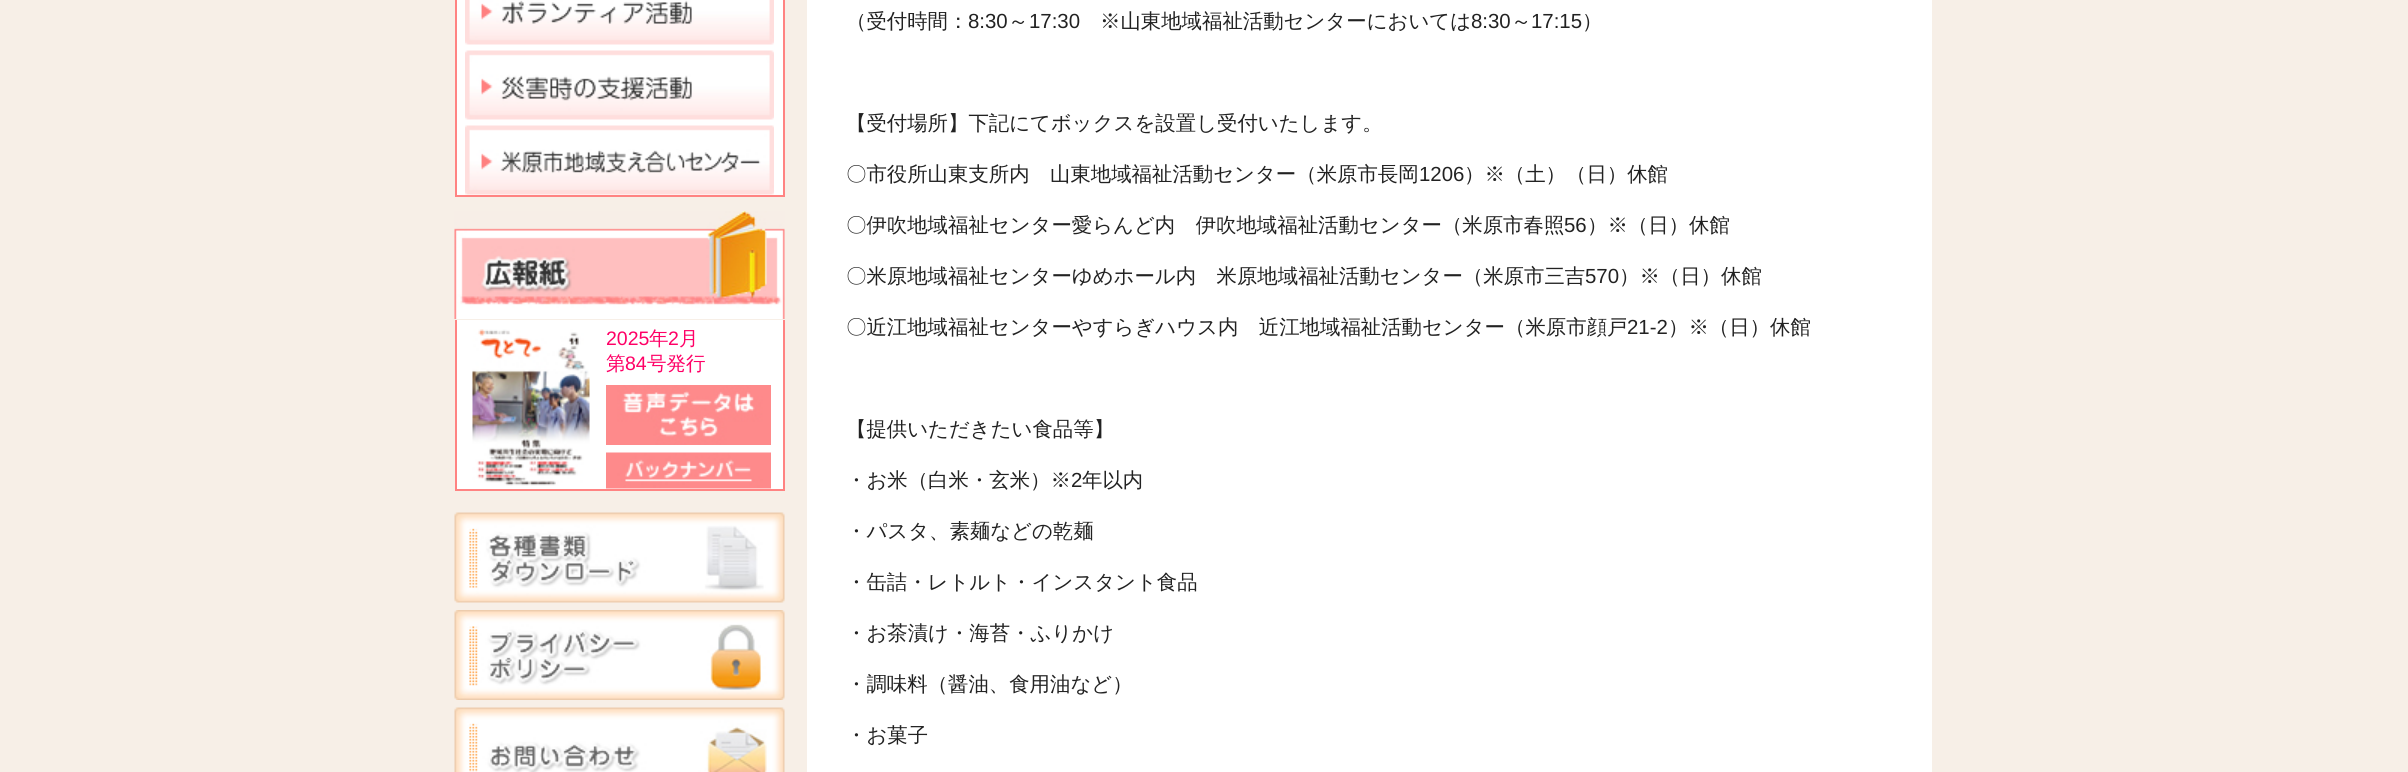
import math
import cairocffi as cairo

surface = cairo.ImageSurface(cairo.FORMAT_RGB24, 2408, 772)
cr = cairo.Context(surface)
options = cairo.FontOptions()
options.set_hint_metrics(cairo.HINT_METRICS_OFF)
options.set_hint_style(cairo.HINT_STYLE_NONE)
cr.set_font_options(options)
cr.set_miter_limit(4)


def use_color(code):
    cr.set_source_rgb(*(v / 255 for v in bytes.fromhex(code[-6:])))


def picture(path, x, y, w, h):
    cr.save()
    cr.set_source_surface(cairo.ImageSurface.create_from_png(path), x, y)
    cr.rectangle(x, y, w, h)
    cr.fill()
    cr.restore()


use_color("#f7efe7")
cr.paint()
use_color("#ffffff")
cr.rectangle(456, -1, 328, 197)
cr.fill_preserve()
use_color("#ff8382")
cr.stroke()
picture("img1.png", 465, 0, 309, 45)
picture("img2.png", 465, 50, 309, 70)
picture("img3.png", 465, 125, 309, 70)
picture("img4.png", 454, 211, 331, 108)
use_color("#ffffff")
cr.rectangle(457, 320, 326, 169)
cr.fill()
use_color("#ff8382")
cr.rectangle(783, 320, 2, 171)
cr.fill()
cr.rectangle(455, 489, 330, 2)
cr.fill()
cr.rectangle(455, 320, 2, 171)
cr.fill()
picture("img5.png", 472, 329, 118, 157)
cr.select_font_face("Liberation Sans")
cr.set_font_size(19.5)
use_color("#ff0066")
cr.move_to(606, 345)
cr.show_text("2025")
cr.select_font_face("WenQuanYi Zen Hei Medium")
cr.move_to(649, 345)
cr.show_text("年")
cr.select_font_face("Liberation Sans")
cr.move_to(668, 345)
cr.show_text("2")
cr.select_font_face("WenQuanYi Zen Hei Medium")
cr.move_to(679, 345)
cr.show_text("月")
cr.move_to(606, 370)
cr.show_text("第")
cr.select_font_face("Liberation Sans")
cr.move_to(625, 370)
cr.show_text("84")
cr.select_font_face("WenQuanYi Zen Hei Medium")
cr.move_to(647, 370)
cr.show_text("号発行")
picture("img6.png", 606, 385, 165, 60)
picture("img7.png", 606, 452, 165, 37)
picture("img8.png", 454, 512, 331, 91)
picture("img9.png", 454, 610, 331, 90)
picture("img10.png", 454, 707, 331, 65)
use_color("#ffffff")
cr.rectangle(807, 0, 1125, 772)
cr.fill()
cr.set_font_size(20.4)
use_color("#222222")
cr.move_to(846, 28)
cr.show_text("（受付時間：")
cr.select_font_face("Liberation Sans")
cr.move_to(968, 28)
cr.show_text("8:30")
cr.select_font_face("WenQuanYi Zen Hei Medium")
cr.move_to(1008, 28)
cr.show_text("～")
cr.select_font_face("Liberation Sans")
cr.move_to(1029, 28)
cr.show_text("17:30")
cr.select_font_face("WenQuanYi Zen Hei Medium")
cr.move_to(1100, 28)
cr.show_text("※山東地域福祉活動センターにおいては")
cr.select_font_face("Liberation Sans")
cr.move_to(1471, 28)
cr.show_text("8:30")
cr.select_font_face("WenQuanYi Zen Hei Medium")
cr.move_to(1511, 28)
cr.show_text("～")
cr.select_font_face("Liberation Sans")
cr.move_to(1531, 28)
cr.show_text("17:15")
cr.select_font_face("WenQuanYi Zen Hei Medium")
cr.move_to(1582, 28)
cr.show_text("）")
cr.move_to(846, 130)
cr.show_text("【受付場所】下記にてボックスを設置し受付いたします。")
cr.move_to(846, 181)
cr.show_text("〇市役所山東支所内　山東地域福祉活動センター（米原市長岡")
cr.select_font_face("Liberation Sans")
cr.move_to(1419, 181)
cr.show_text("1206")
cr.select_font_face("WenQuanYi Zen Hei Medium")
cr.move_to(1464, 181)
cr.show_text("）※（土）（日）休館")
cr.move_to(846, 232)
cr.show_text("〇伊吹地域福祉センター愛らんど内　伊吹地域福祉活動センター（米原市春照")
cr.select_font_face("Liberation Sans")
cr.move_to(1564, 232)
cr.show_text("56")
cr.select_font_face("WenQuanYi Zen Hei Medium")
cr.move_to(1587, 232)
cr.show_text("）※（日）休館")
cr.move_to(846, 283)
cr.show_text("〇米原地域福祉センターゆめホール内　米原地域福祉活動センター（米原市三吉")
cr.select_font_face("Liberation Sans")
cr.move_to(1585, 283)
cr.show_text("570")
cr.select_font_face("WenQuanYi Zen Hei Medium")
cr.move_to(1619, 283)
cr.show_text("）※（日）休館")
cr.move_to(846, 334)
cr.show_text("〇近江地域福祉センターやすらぎハウス内　近江地域福祉活動センター（米原市顔戸")
cr.select_font_face("Liberation Sans")
cr.move_to(1627, 334)
cr.show_text("21-2")
cr.select_font_face("WenQuanYi Zen Hei Medium")
cr.move_to(1668, 334)
cr.show_text("）※（日）休館")
cr.move_to(846, 436)
cr.show_text("【提供いただきたい食品等】")
cr.move_to(846, 487)
cr.show_text("・お米（白米・玄米）※")
cr.select_font_face("Liberation Sans")
cr.move_to(1071, 487)
cr.show_text("2")
cr.select_font_face("WenQuanYi Zen Hei Medium")
cr.move_to(1082, 487)
cr.show_text("年以内")
cr.move_to(846, 538)
cr.show_text("・パスタ、素麺などの乾麺")
cr.move_to(846, 589)
cr.show_text("・缶詰・レトルト・インスタント食品")
cr.move_to(846, 640)
cr.show_text("・お茶漬け・海苔・ふりかけ")
cr.move_to(846, 691)
cr.show_text("・調味料（醤油、食用油など）")
cr.move_to(846, 742)
cr.show_text("・お菓子")
surface.write_to_png("result.png")
